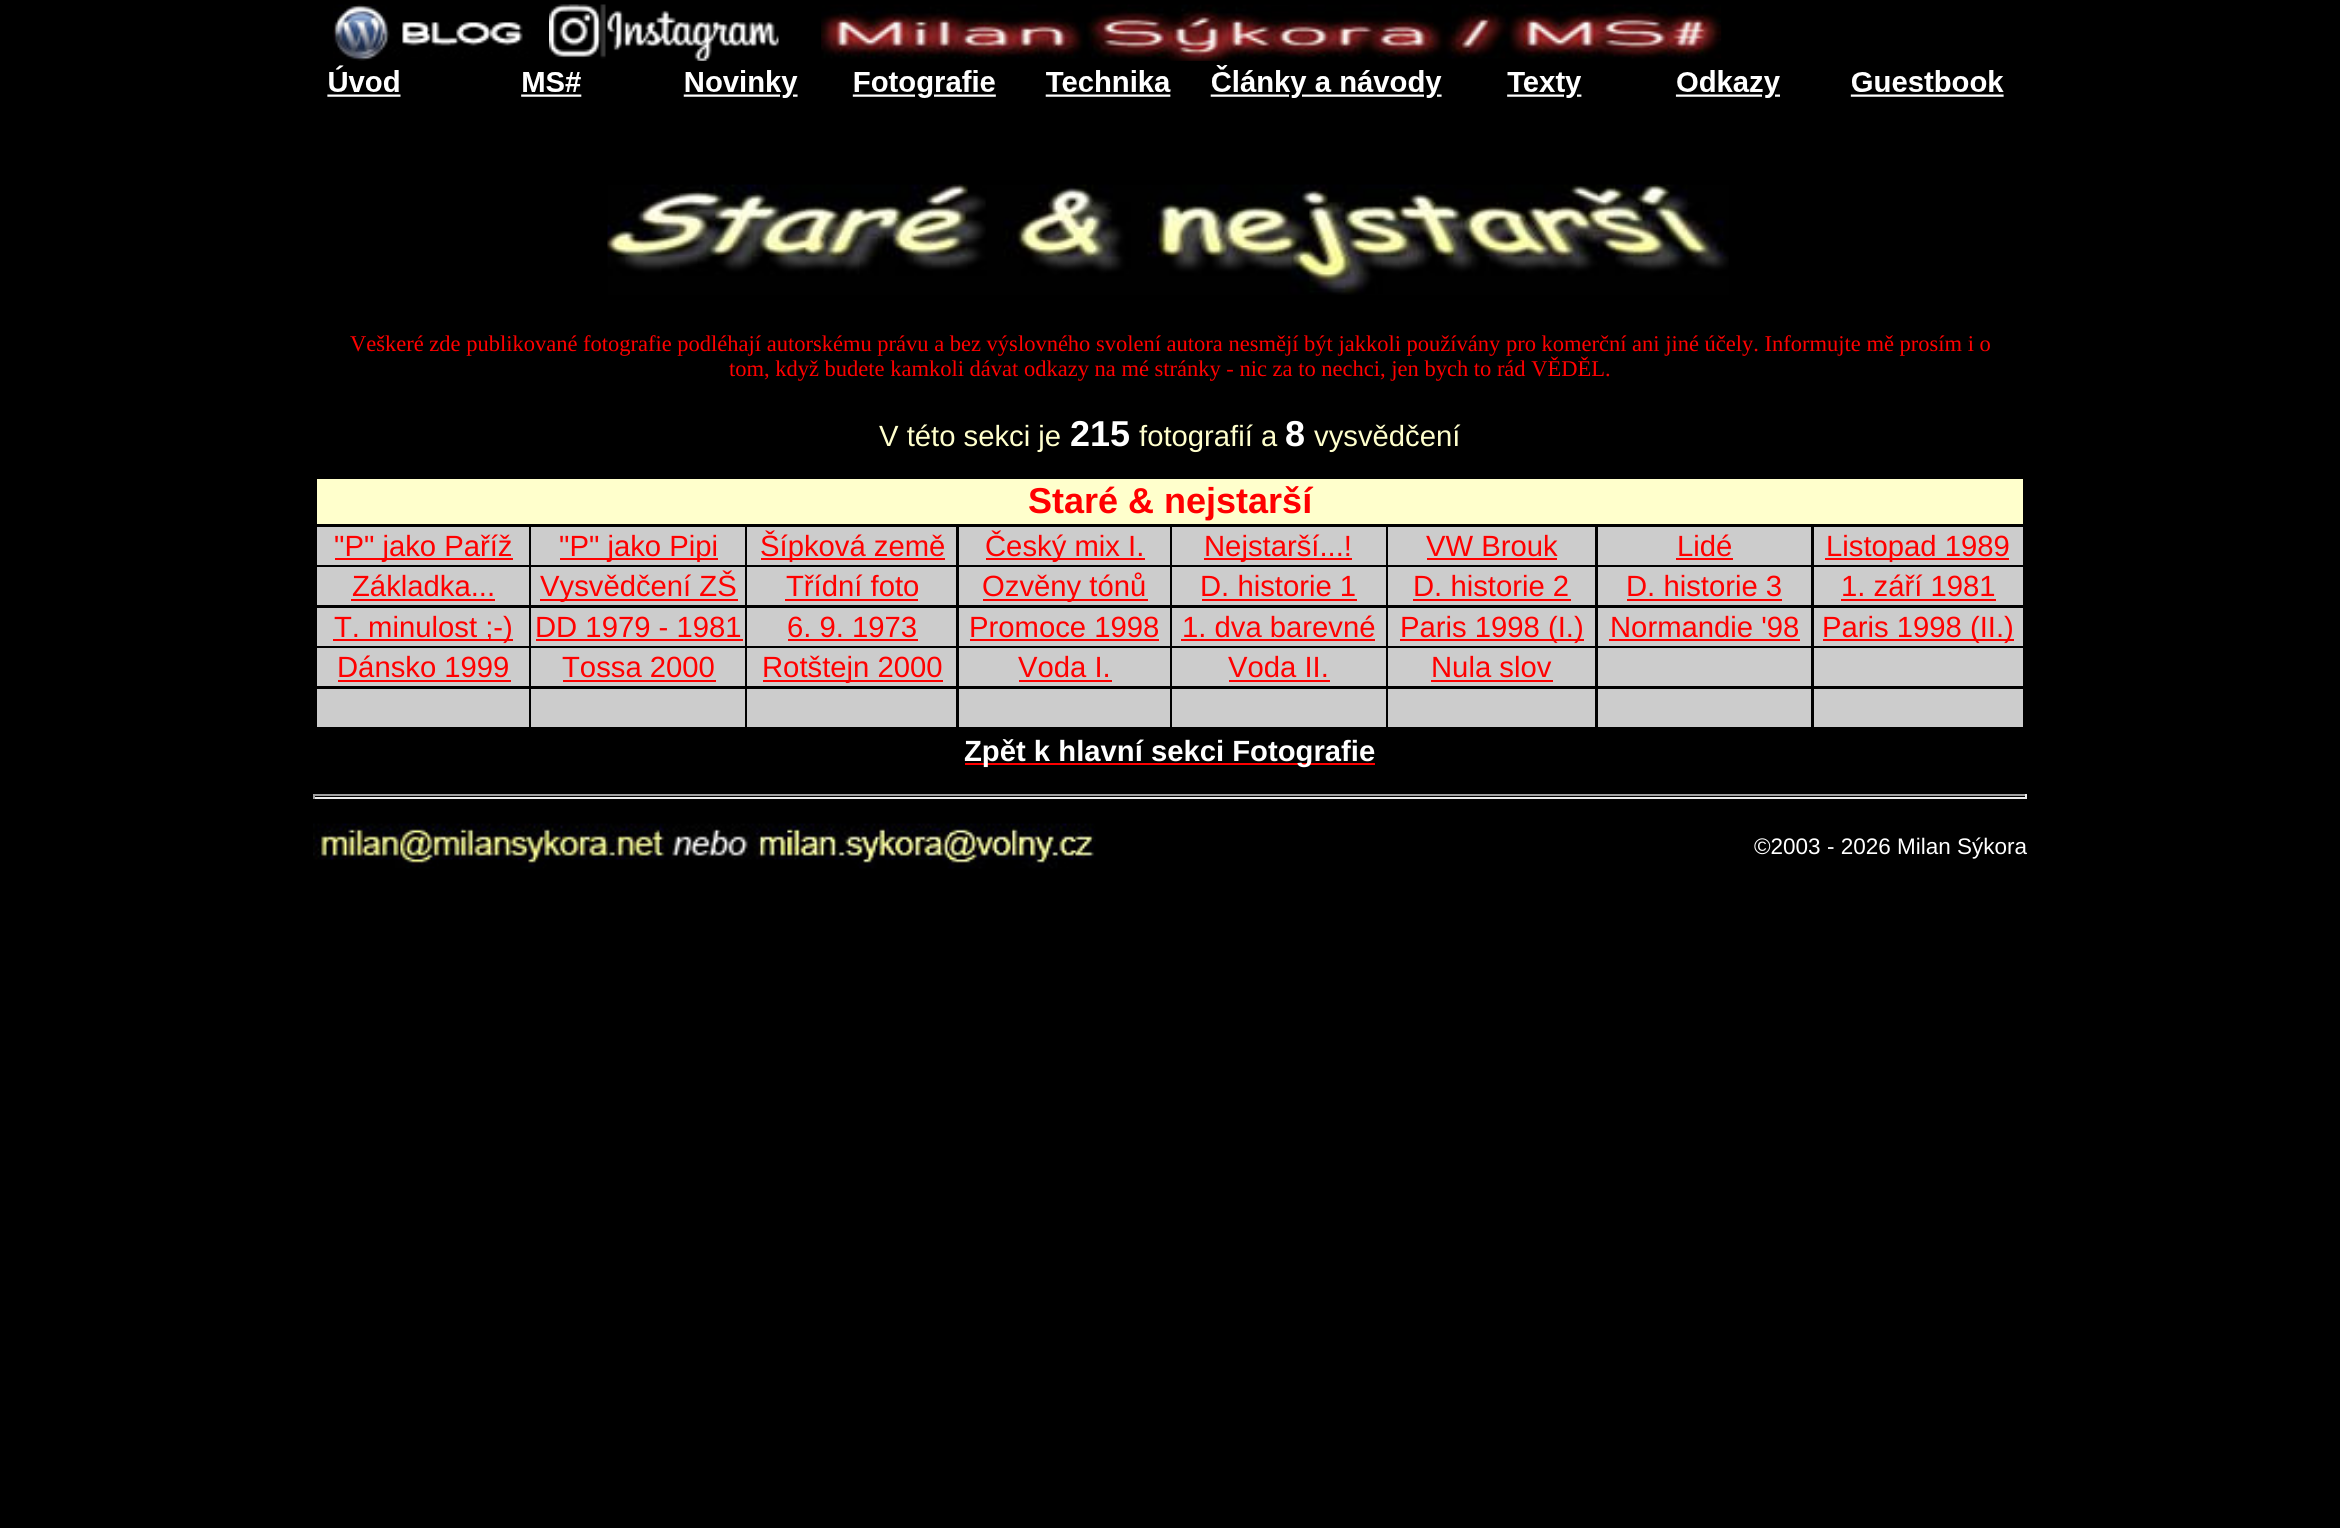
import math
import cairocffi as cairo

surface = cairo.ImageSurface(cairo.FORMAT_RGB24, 2340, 1528)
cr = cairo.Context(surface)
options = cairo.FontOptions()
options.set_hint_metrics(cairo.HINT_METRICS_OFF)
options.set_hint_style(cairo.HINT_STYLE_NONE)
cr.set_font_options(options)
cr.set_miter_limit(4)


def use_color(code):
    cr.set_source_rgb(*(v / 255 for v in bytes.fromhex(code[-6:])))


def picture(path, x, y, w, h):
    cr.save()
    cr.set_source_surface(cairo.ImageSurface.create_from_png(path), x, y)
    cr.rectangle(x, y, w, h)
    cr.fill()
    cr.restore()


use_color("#000000")
cr.paint()
picture("img1.png", 327, 4, 1677, 94)
picture("img2.png", 607, 184, 1122, 111)
cr.select_font_face("Liberation Serif")
cr.set_font_size(22.5)
use_color("#ff0000")
cr.move_to(350, 351)
cr.show_text("Veškeré zde publikované fotografie podléhají autorskému právu a bez výslovného svolení autora nesmějí být jakkoli používány pro komerční ani jiné účely. Informujte mě prosím i o")
cr.move_to(729, 376)
cr.show_text("tom, když budete kamkoli dávat odkazy na mé stránky - nic za to nechci, jen bych to rád VĚDĚL.")
cr.select_font_face("Liberation Sans")
cr.set_font_size(29.25)
use_color("#ffffcc")
cr.move_to(879, 446)
cr.show_text("V této sekci je")
cr.select_font_face("Liberation Sans", cairo.FONT_SLANT_NORMAL, cairo.FONT_WEIGHT_BOLD)
cr.set_font_size(36)
use_color("#ffffff")
cr.move_to(1070, 446)
cr.show_text("215")
cr.select_font_face("Liberation Sans")
cr.set_font_size(29.25)
use_color("#ffffcc")
cr.move_to(1139, 446)
cr.show_text("fotografií a")
cr.select_font_face("Liberation Sans", cairo.FONT_SLANT_NORMAL, cairo.FONT_WEIGHT_BOLD)
cr.set_font_size(36)
use_color("#ffffff")
cr.move_to(1285, 446)
cr.show_text("8")
cr.select_font_face("Liberation Sans")
cr.set_font_size(29.25)
use_color("#ffffcc")
cr.move_to(1314, 446)
cr.show_text("vysvědčení")
cr.rectangle(317, 479, 1706, 45)
cr.fill()
cr.select_font_face("Liberation Sans", cairo.FONT_SLANT_NORMAL, cairo.FONT_WEIGHT_BOLD)
cr.set_font_size(36)
use_color("#ff0000")
cr.move_to(1028, 513)
cr.show_text("Staré & nejstarší")
use_color("#cccccc")
cr.rectangle(317, 527, 212, 38)
cr.fill()
use_color("#ff0000")
cr.rectangle(335, 558, 178, 2)
cr.fill()
cr.select_font_face("Liberation Sans")
cr.set_font_size(29.25)
cr.move_to(334, 556)
cr.show_text("\"P\" jako Paříž")
use_color("#cccccc")
cr.rectangle(531, 527, 214, 38)
cr.fill()
use_color("#ff0000")
cr.rectangle(560, 558, 158, 2)
cr.fill()
cr.move_to(559, 556)
cr.show_text("\"P\" jako Pipi")
use_color("#cccccc")
cr.rectangle(747, 527, 209, 38)
cr.fill()
use_color("#ff0000")
cr.rectangle(761, 558, 184, 2)
cr.fill()
cr.move_to(760, 556)
cr.show_text("Šípková země")
use_color("#cccccc")
cr.rectangle(959, 527, 211, 38)
cr.fill()
use_color("#ff0000")
cr.rectangle(986, 558, 159, 2)
cr.fill()
cr.move_to(985, 556)
cr.show_text("Český mix I.")
use_color("#cccccc")
cr.rectangle(1172, 527, 214, 38)
cr.fill()
use_color("#ff0000")
cr.rectangle(1204, 558, 148, 2)
cr.fill()
cr.move_to(1204, 556)
cr.show_text("Nejstarší...!")
use_color("#cccccc")
cr.rectangle(1388, 527, 207, 38)
cr.fill()
use_color("#ff0000")
cr.move_to(1426, 556)
cr.show_text("VW Brouk")
cr.rectangle(1427, 558, 130, 2)
cr.fill()
use_color("#cccccc")
cr.rectangle(1598, 527, 213, 38)
cr.fill()
use_color("#ff0000")
cr.move_to(1677, 556)
cr.show_text("Lidé")
cr.rectangle(1676, 558, 57, 2)
cr.fill()
use_color("#cccccc")
cr.rectangle(1814, 527, 209, 38)
cr.fill()
use_color("#ff0000")
cr.rectangle(1825, 558, 184, 2)
cr.fill()
cr.move_to(1826, 556)
cr.show_text("Listopad 1989")
use_color("#cccccc")
cr.rectangle(317, 567, 212, 38)
cr.fill()
use_color("#ff0000")
cr.move_to(352, 596)
cr.show_text("Základka...")
cr.rectangle(351, 599, 144, 2)
cr.fill()
use_color("#cccccc")
cr.rectangle(531, 567, 214, 38)
cr.fill()
use_color("#ff0000")
cr.rectangle(540, 599, 198, 2)
cr.fill()
cr.move_to(540, 596)
cr.show_text("Vysvědčení ZŠ")
use_color("#cccccc")
cr.rectangle(747, 567, 209, 38)
cr.fill()
use_color("#ff0000")
cr.move_to(786, 596)
cr.show_text("Třídní foto")
cr.rectangle(785, 599, 133, 2)
cr.fill()
use_color("#cccccc")
cr.rectangle(959, 567, 211, 38)
cr.fill()
use_color("#ff0000")
cr.rectangle(983, 599, 165, 2)
cr.fill()
cr.move_to(982, 596)
cr.show_text("Ozvěny tónů")
use_color("#cccccc")
cr.rectangle(1172, 567, 214, 38)
cr.fill()
use_color("#ff0000")
cr.move_to(1200, 596)
cr.show_text("D. historie 1")
cr.rectangle(1202, 599, 155, 2)
cr.fill()
use_color("#cccccc")
cr.rectangle(1388, 567, 207, 38)
cr.fill()
use_color("#ff0000")
cr.move_to(1413, 596)
cr.show_text("D. historie 2")
cr.rectangle(1413, 599, 158, 2)
cr.fill()
use_color("#cccccc")
cr.rectangle(1598, 567, 213, 38)
cr.fill()
use_color("#ff0000")
cr.move_to(1626, 596)
cr.show_text("D. historie 3")
cr.rectangle(1627, 599, 155, 2)
cr.fill()
use_color("#cccccc")
cr.rectangle(1814, 567, 209, 38)
cr.fill()
use_color("#ff0000")
cr.move_to(1841, 596)
cr.show_text("1. září 1981")
cr.rectangle(1841, 599, 155, 2)
cr.fill()
use_color("#cccccc")
cr.rectangle(317, 608, 212, 38)
cr.fill()
use_color("#ff0000")
cr.rectangle(333, 639, 180, 2)
cr.fill()
cr.move_to(334, 637)
cr.show_text("T. minulost ;-)")
use_color("#cccccc")
cr.rectangle(531, 608, 214, 38)
cr.fill()
use_color("#ff0000")
cr.move_to(535, 637)
cr.show_text("DD 1979 - 1981")
cr.rectangle(536, 639, 207, 2)
cr.fill()
use_color("#cccccc")
cr.rectangle(747, 608, 209, 38)
cr.fill()
use_color("#ff0000")
cr.move_to(787, 637)
cr.show_text("6. 9. 1973")
cr.rectangle(788, 639, 130, 2)
cr.fill()
use_color("#cccccc")
cr.rectangle(959, 608, 211, 38)
cr.fill()
use_color("#ff0000")
cr.move_to(969, 637)
cr.show_text("Promoce 1998")
cr.rectangle(970, 639, 189, 2)
cr.fill()
use_color("#cccccc")
cr.rectangle(1172, 608, 214, 38)
cr.fill()
use_color("#ff0000")
cr.move_to(1182, 637)
cr.show_text("1. dva barevné")
cr.rectangle(1181, 639, 194, 2)
cr.fill()
use_color("#cccccc")
cr.rectangle(1388, 608, 207, 38)
cr.fill()
use_color("#ff0000")
cr.rectangle(1400, 639, 184, 2)
cr.fill()
cr.move_to(1400, 637)
cr.show_text("Paris 1998 (I.)")
use_color("#cccccc")
cr.rectangle(1598, 608, 213, 38)
cr.fill()
use_color("#ff0000")
cr.move_to(1610, 637)
cr.show_text("Normandie '98")
cr.rectangle(1609, 639, 191, 2)
cr.fill()
use_color("#cccccc")
cr.rectangle(1814, 608, 209, 38)
cr.fill()
use_color("#ff0000")
cr.rectangle(1823, 639, 191, 2)
cr.fill()
cr.move_to(1822, 637)
cr.show_text("Paris 1998 (II.)")
use_color("#cccccc")
cr.rectangle(317, 648, 212, 38)
cr.fill()
use_color("#ff0000")
cr.move_to(337, 677)
cr.show_text("Dánsko 1999")
cr.rectangle(338, 680, 173, 2)
cr.fill()
use_color("#cccccc")
cr.rectangle(531, 648, 214, 38)
cr.fill()
use_color("#ff0000")
cr.move_to(562, 677)
cr.show_text("Tossa 2000")
cr.rectangle(563, 680, 153, 2)
cr.fill()
use_color("#cccccc")
cr.rectangle(747, 648, 209, 38)
cr.fill()
use_color("#ff0000")
cr.rectangle(763, 680, 180, 2)
cr.fill()
cr.move_to(762, 677)
cr.show_text("Rotštejn 2000")
use_color("#cccccc")
cr.rectangle(959, 648, 211, 38)
cr.fill()
use_color("#ff0000")
cr.move_to(1018, 677)
cr.show_text("Voda I.")
cr.rectangle(1019, 680, 93, 2)
cr.fill()
use_color("#cccccc")
cr.rectangle(1172, 648, 214, 38)
cr.fill()
use_color("#ff0000")
cr.move_to(1228, 677)
cr.show_text("Voda II.")
cr.rectangle(1229, 680, 101, 2)
cr.fill()
use_color("#cccccc")
cr.rectangle(1388, 648, 207, 38)
cr.fill()
use_color("#ff0000")
cr.move_to(1431, 677)
cr.show_text("Nula slov")
cr.rectangle(1431, 680, 122, 2)
cr.fill()
use_color("#cccccc")
cr.rectangle(1598, 648, 213, 38)
cr.fill()
cr.rectangle(1814, 648, 209, 38)
cr.fill()
cr.rectangle(317, 689, 212, 38)
cr.fill()
cr.rectangle(531, 689, 214, 38)
cr.fill()
cr.rectangle(747, 689, 209, 38)
cr.fill()
cr.rectangle(959, 689, 211, 38)
cr.fill()
cr.rectangle(1172, 689, 214, 38)
cr.fill()
cr.rectangle(1388, 689, 207, 38)
cr.fill()
cr.rectangle(1598, 689, 213, 38)
cr.fill()
cr.rectangle(1814, 689, 209, 38)
cr.fill()
use_color("#ff0000")
cr.rectangle(965, 763, 410, 2)
cr.fill()
cr.select_font_face("Liberation Sans", cairo.FONT_SLANT_NORMAL, cairo.FONT_WEIGHT_BOLD)
use_color("#ffffff")
cr.move_to(964, 761)
cr.show_text("Zpět k hlavní sekci Fotografie")
use_color("#9f9f9f")
cr.rectangle(313, 794, 1714, 2)
cr.fill()
use_color("#eeeeee")
cr.rectangle(2025, 794, 2, 5)
cr.fill()
cr.rectangle(313, 797, 1714, 2)
cr.fill()
use_color("#9f9f9f")
cr.rectangle(313, 794, 2, 5)
cr.fill()
picture("img3.png", 313, 823, 783, 46)
cr.select_font_face("Liberation Sans")
cr.set_font_size(22.5)
use_color("#ffffff")
cr.move_to(1754, 854)
cr.show_text("©2003 - 2026 Milan Sýkora")
surface.write_to_png("result.png")
